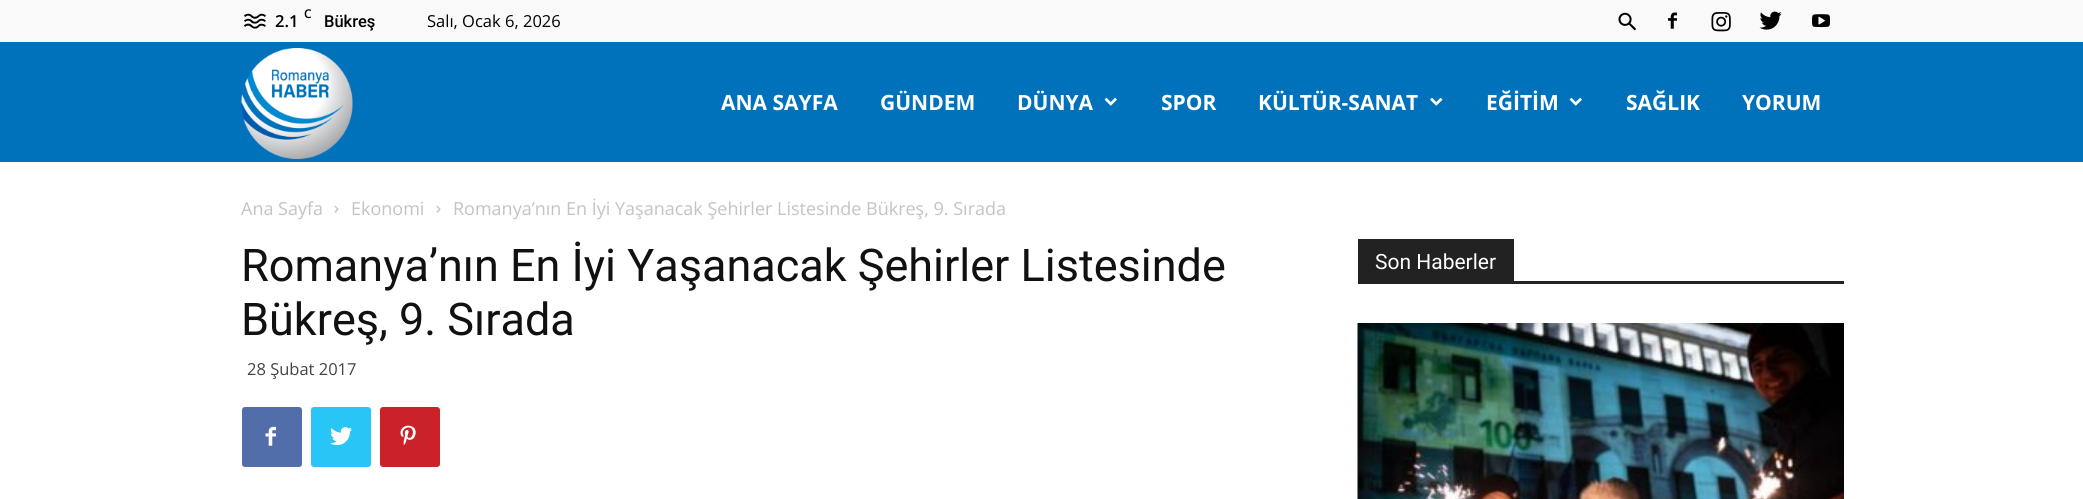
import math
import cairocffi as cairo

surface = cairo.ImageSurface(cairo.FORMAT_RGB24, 2083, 499)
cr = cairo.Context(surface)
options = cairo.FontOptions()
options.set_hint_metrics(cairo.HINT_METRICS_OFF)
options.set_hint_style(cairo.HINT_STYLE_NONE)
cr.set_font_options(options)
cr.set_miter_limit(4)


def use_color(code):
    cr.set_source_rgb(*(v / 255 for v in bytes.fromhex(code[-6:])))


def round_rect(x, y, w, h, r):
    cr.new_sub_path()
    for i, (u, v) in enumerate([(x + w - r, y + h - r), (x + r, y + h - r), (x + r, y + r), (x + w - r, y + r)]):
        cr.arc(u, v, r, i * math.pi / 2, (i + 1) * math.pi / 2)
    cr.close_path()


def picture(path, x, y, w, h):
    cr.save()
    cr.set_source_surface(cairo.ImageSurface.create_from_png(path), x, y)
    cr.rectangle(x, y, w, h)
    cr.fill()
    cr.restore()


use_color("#ffffff")
cr.paint()
use_color("#f9f9f9")
cr.rectangle(0, 0, 2083, 42)
cr.fill()
picture("img1.png", 243, 13, 23, 16)
cr.select_font_face("Open Sans SemiBold")
cr.set_font_size(12)
use_color("#000000")
cr.move_to(304, 18)
cr.show_text("C")
cr.set_font_size(16.5)
cr.move_to(275, 27)
cr.show_text("2.1")
cr.select_font_face("Roboto Medium")
cr.move_to(324, 27)
cr.show_text("Bükreş")
cr.select_font_face("Open Sans")
cr.move_to(427, 27)
cr.show_text("Salı, Ocak 6, 2026")
picture("img2.png", 1618, 12, 18, 19)
picture("img3.png", 1668, 12, 9, 17)
picture("img4.png", 1711, 12, 20, 20)
picture("img5.png", 1759, 11, 23, 19)
picture("img6.png", 1812, 14, 18, 14)
use_color("#0072bc")
cr.rectangle(0, 42, 2083, 120)
cr.fill()
picture("img7.png", 241, 48, 112, 111)
cr.select_font_face("Open Sans", cairo.FONT_SLANT_NORMAL, cairo.FONT_WEIGHT_BOLD)
cr.set_font_size(21)
use_color("#ffffff")
cr.move_to(721, 110)
cr.show_text("ANA SAYFA")
cr.move_to(880, 110)
cr.show_text("GÜNDEM")
cr.move_to(1017, 110)
cr.show_text("DÜNYA")
picture("img8.png", 1104, 97, 13, 9)
cr.move_to(1161, 110)
cr.show_text("SPOR")
cr.move_to(1258, 110)
cr.show_text("KÜLTÜR-SANAT")
picture("img9.png", 1430, 97, 13, 9)
cr.move_to(1486, 110)
cr.show_text("EĞİTİM")
picture("img8.png", 1569, 97, 13, 9)
cr.move_to(1626, 110)
cr.show_text("SAĞLIK")
cr.move_to(1742, 110)
cr.show_text("YORUM")
cr.select_font_face("Open Sans")
cr.set_font_size(18)
use_color("#c3c3c3")
cr.move_to(241, 215)
cr.show_text("Ana Sayfa")
picture("img10.png", 334, 205, 5, 8)
cr.move_to(351, 215)
cr.show_text("Ekonomi")
picture("img10.png", 436, 205, 5, 8)
cr.move_to(453, 215)
cr.show_text("Romanya’nın En İyi Yaşanacak Şehirler Listesinde Bükreş, 9. Sırada")
cr.select_font_face("Roboto")
cr.set_font_size(45)
use_color("#111111")
cr.move_to(241, 281)
cr.show_text("Romanya’nın En İyi Yaşanacak Şehirler Listesinde")
cr.move_to(241, 335)
cr.show_text("Bükreş, 9. Sırada")
cr.select_font_face("Open Sans")
cr.set_font_size(16.5)
use_color("#444444")
cr.move_to(247, 375)
cr.show_text("28 Şubat 2017")
use_color("#516eab")
round_rect(242, 407, 60, 60, 3)
cr.fill()
picture("img11.png", 265, 426, 11, 20)
use_color("#29c5f6")
round_rect(311, 407, 60, 60, 3)
cr.fill()
picture("img12.png", 330, 427, 22, 19)
use_color("#ca212a")
round_rect(380, 407, 60, 60, 3)
cr.fill()
picture("img13.png", 400, 425, 16, 21)
use_color("#222222")
cr.rectangle(1358, 281, 486, 3)
cr.fill()
cr.rectangle(1358, 239, 156, 42)
cr.fill()
cr.select_font_face("Roboto")
cr.set_font_size(21)
use_color("#ffffff")
cr.move_to(1375, 269)
cr.show_text("Son Haberler")
picture("img14.png", 1357, 323, 487, 176)
surface.write_to_png("result.png")
